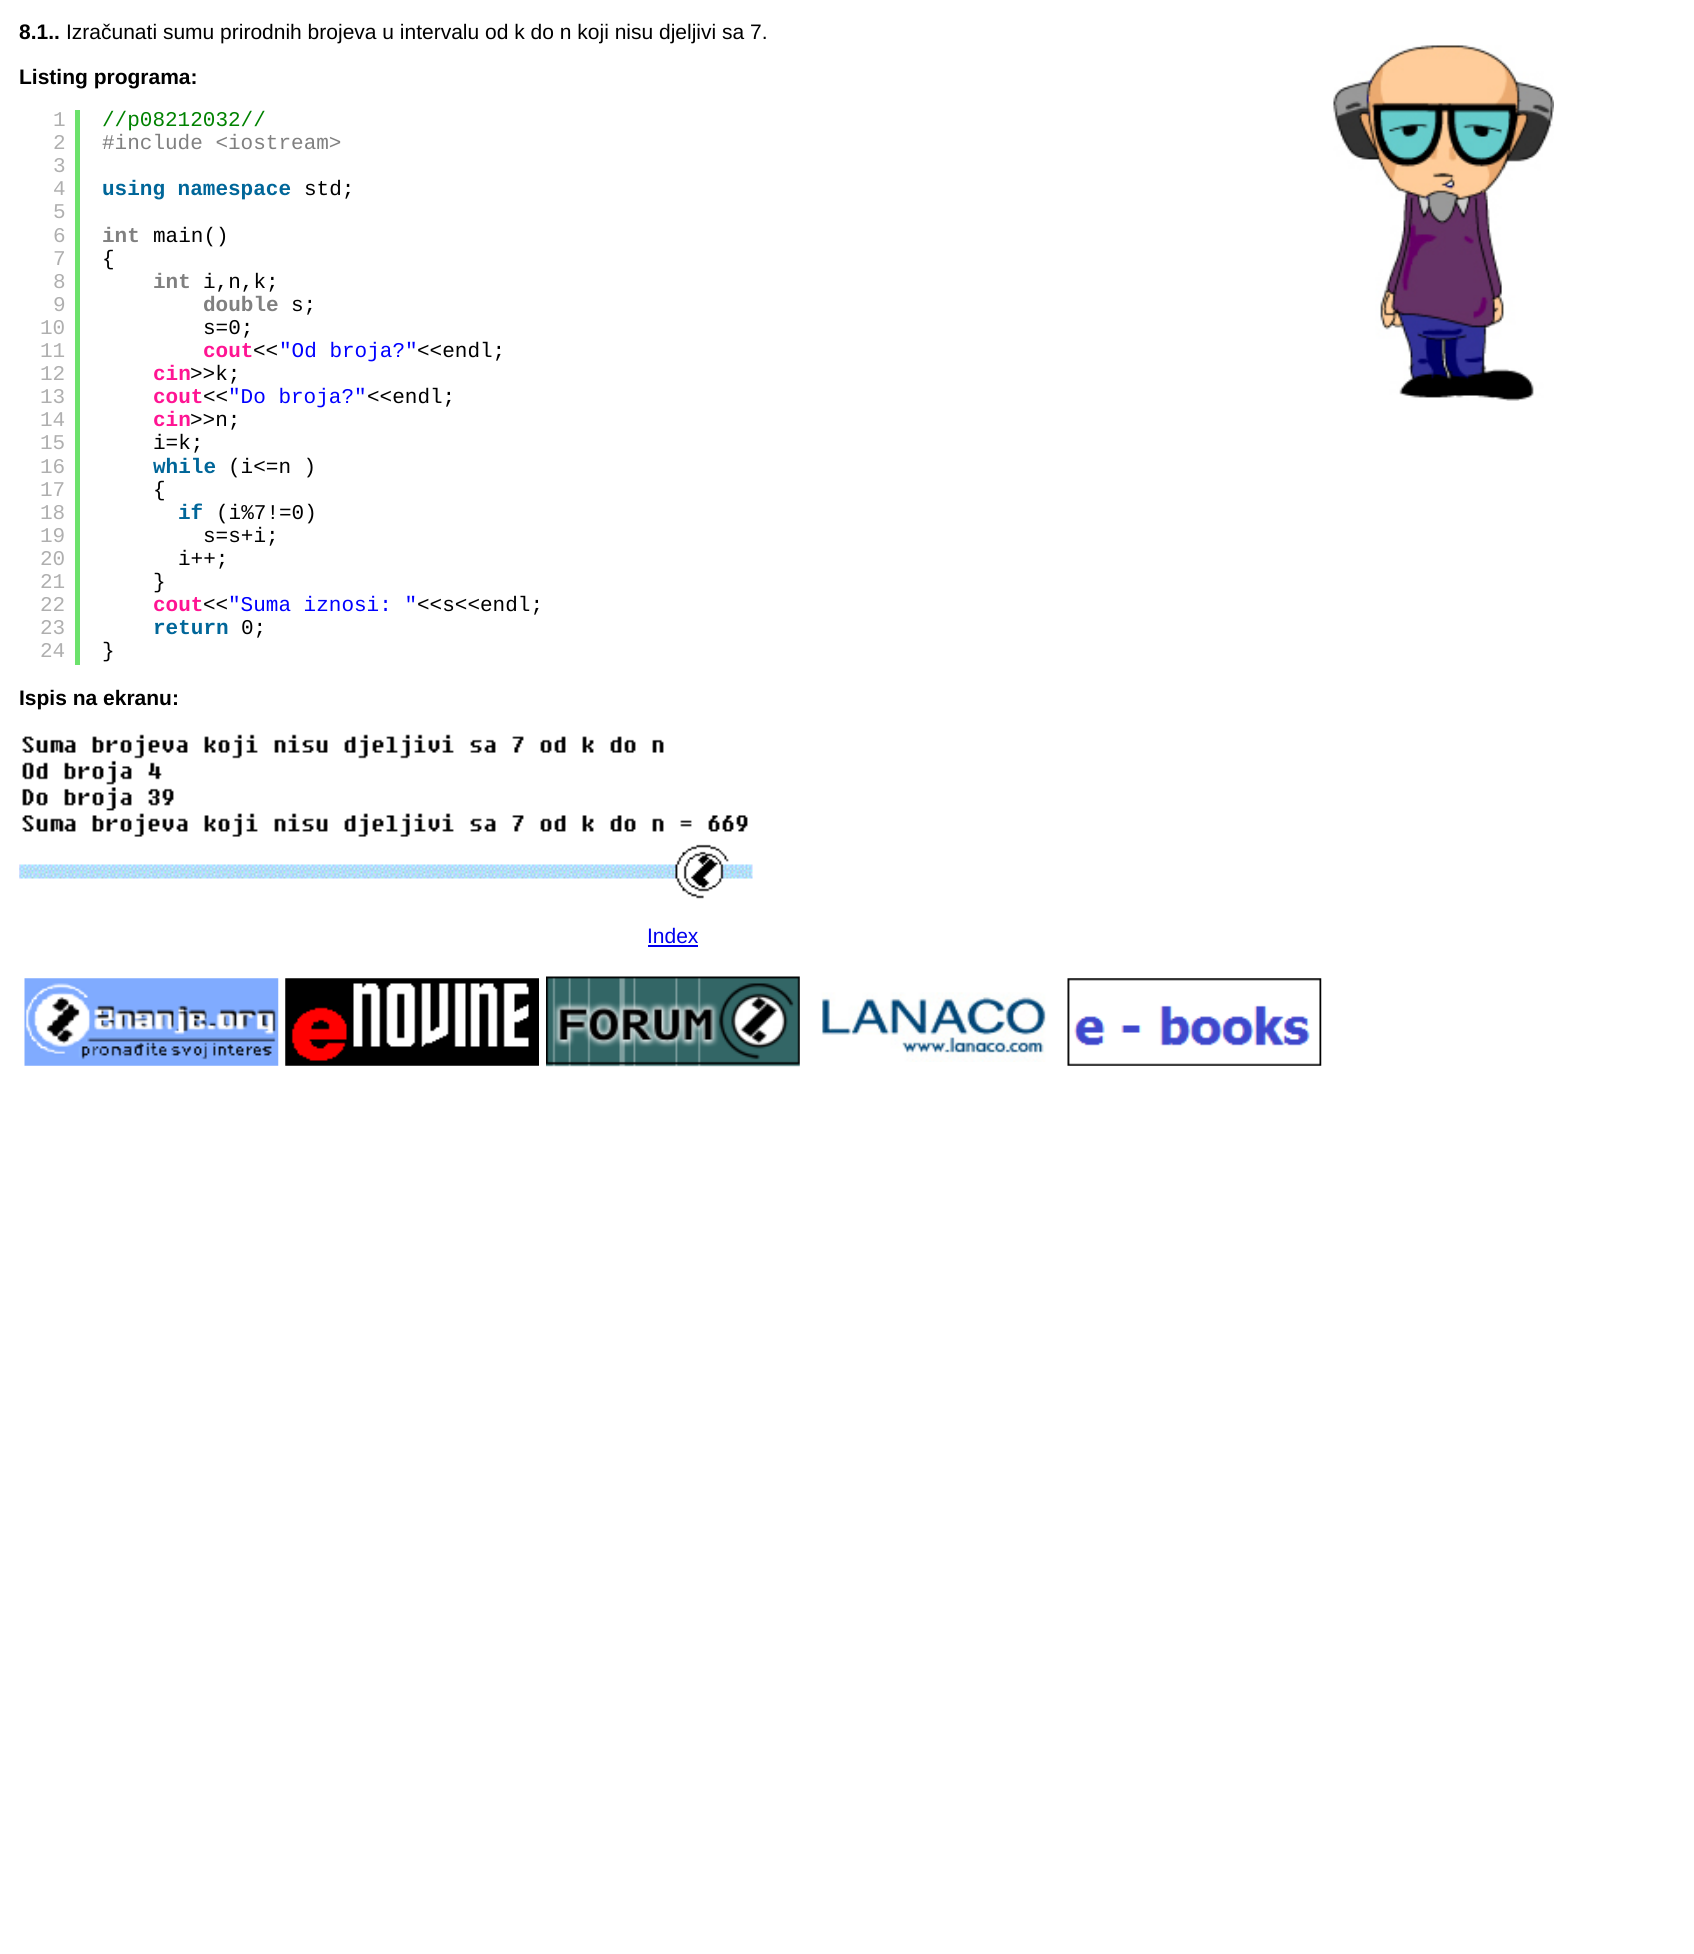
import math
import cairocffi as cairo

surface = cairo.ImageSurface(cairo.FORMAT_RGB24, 1694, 1954)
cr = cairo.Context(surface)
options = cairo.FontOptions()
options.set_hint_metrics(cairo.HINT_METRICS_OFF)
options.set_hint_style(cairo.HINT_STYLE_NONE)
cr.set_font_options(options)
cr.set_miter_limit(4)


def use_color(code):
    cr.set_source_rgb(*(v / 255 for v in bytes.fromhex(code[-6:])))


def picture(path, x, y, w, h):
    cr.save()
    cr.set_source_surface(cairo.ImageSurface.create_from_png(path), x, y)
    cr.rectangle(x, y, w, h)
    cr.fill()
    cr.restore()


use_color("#ffffff")
cr.paint()
cr.select_font_face("Liberation Sans", cairo.FONT_SLANT_NORMAL, cairo.FONT_WEIGHT_BOLD)
cr.set_font_size(21)
use_color("#000000")
cr.move_to(19, 39)
cr.show_text("8.1..")
cr.select_font_face("Liberation Sans")
cr.move_to(66, 39)
cr.show_text("Izračunati sumu prirodnih brojeva u intervalu od k do n koji nisu djeljivi sa 7.")
cr.select_font_face("Liberation Sans", cairo.FONT_SLANT_NORMAL, cairo.FONT_WEIGHT_BOLD)
cr.move_to(19, 84)
cr.show_text("Listing programa:")
use_color("#6ce26c")
cr.rectangle(75, 110, 5, 555)
cr.fill()
cr.select_font_face("Liberation Mono")
use_color("#afafaf")
cr.move_to(53, 126)
cr.show_text("1")
cr.move_to(53, 149)
cr.show_text("2")
cr.move_to(53, 172)
cr.show_text("3")
cr.move_to(53, 195)
cr.show_text("4")
cr.move_to(53, 218)
cr.show_text("5")
cr.move_to(53, 242)
cr.show_text("6")
cr.move_to(53, 265)
cr.show_text("7")
cr.move_to(53, 288)
cr.show_text("8")
cr.move_to(53, 311)
cr.show_text("9")
cr.move_to(40, 334)
cr.show_text("10")
cr.move_to(40, 357)
cr.show_text("11")
cr.move_to(40, 380)
cr.show_text("12")
cr.move_to(40, 403)
cr.show_text("13")
cr.move_to(40, 426)
cr.show_text("14")
cr.move_to(40, 449)
cr.show_text("15")
cr.move_to(40, 473)
cr.show_text("16")
cr.move_to(40, 496)
cr.show_text("17")
cr.move_to(40, 519)
cr.show_text("18")
cr.move_to(40, 542)
cr.show_text("19")
cr.move_to(40, 565)
cr.show_text("20")
cr.move_to(40, 588)
cr.show_text("21")
cr.move_to(40, 611)
cr.show_text("22")
cr.move_to(40, 634)
cr.show_text("23")
cr.move_to(40, 657)
cr.show_text("24")
use_color("#008200")
cr.move_to(102, 126)
cr.show_text("//p08212032//")
use_color("#808080")
cr.move_to(102, 149)
cr.show_text("#include <iostream>")
cr.select_font_face("Liberation Mono", cairo.FONT_SLANT_NORMAL, cairo.FONT_WEIGHT_BOLD)
use_color("#006699")
cr.move_to(102, 195)
cr.show_text("using namespace")
cr.select_font_face("Liberation Mono")
use_color("#000000")
cr.move_to(304, 195)
cr.show_text("std;")
cr.select_font_face("Liberation Mono", cairo.FONT_SLANT_NORMAL, cairo.FONT_WEIGHT_BOLD)
use_color("#808080")
cr.move_to(102, 242)
cr.show_text("int")
cr.select_font_face("Liberation Mono")
use_color("#000000")
cr.move_to(153, 242)
cr.show_text("main()")
cr.move_to(102, 265)
cr.show_text("{")
cr.select_font_face("Liberation Mono", cairo.FONT_SLANT_NORMAL, cairo.FONT_WEIGHT_BOLD)
use_color("#808080")
cr.move_to(153, 288)
cr.show_text("int")
cr.select_font_face("Liberation Mono")
use_color("#000000")
cr.move_to(203, 288)
cr.show_text("i,n,k;")
cr.select_font_face("Liberation Mono", cairo.FONT_SLANT_NORMAL, cairo.FONT_WEIGHT_BOLD)
use_color("#808080")
cr.move_to(203, 311)
cr.show_text("double")
cr.select_font_face("Liberation Mono")
use_color("#000000")
cr.move_to(291, 311)
cr.show_text("s;")
cr.move_to(203, 334)
cr.show_text("s=0;")
cr.select_font_face("Liberation Mono", cairo.FONT_SLANT_NORMAL, cairo.FONT_WEIGHT_BOLD)
use_color("#ff1493")
cr.move_to(203, 357)
cr.show_text("cout")
cr.select_font_face("Liberation Mono")
use_color("#000000")
cr.move_to(253, 357)
cr.show_text("<<")
use_color("#0000ff")
cr.move_to(279, 357)
cr.show_text("\"Od broja?\"")
use_color("#000000")
cr.move_to(417, 357)
cr.show_text("<<endl;")
cr.select_font_face("Liberation Mono", cairo.FONT_SLANT_NORMAL, cairo.FONT_WEIGHT_BOLD)
use_color("#ff1493")
cr.move_to(153, 380)
cr.show_text("cin")
cr.select_font_face("Liberation Mono")
use_color("#000000")
cr.move_to(190, 380)
cr.show_text(">>k;")
cr.select_font_face("Liberation Mono", cairo.FONT_SLANT_NORMAL, cairo.FONT_WEIGHT_BOLD)
use_color("#ff1493")
cr.move_to(153, 403)
cr.show_text("cout")
cr.select_font_face("Liberation Mono")
use_color("#000000")
cr.move_to(203, 403)
cr.show_text("<<")
use_color("#0000ff")
cr.move_to(228, 403)
cr.show_text("\"Do broja?\"")
use_color("#000000")
cr.move_to(367, 403)
cr.show_text("<<endl;")
cr.select_font_face("Liberation Mono", cairo.FONT_SLANT_NORMAL, cairo.FONT_WEIGHT_BOLD)
use_color("#ff1493")
cr.move_to(153, 426)
cr.show_text("cin")
cr.select_font_face("Liberation Mono")
use_color("#000000")
cr.move_to(190, 426)
cr.show_text(">>n;")
cr.move_to(153, 449)
cr.show_text("i=k;")
cr.select_font_face("Liberation Mono", cairo.FONT_SLANT_NORMAL, cairo.FONT_WEIGHT_BOLD)
use_color("#006699")
cr.move_to(153, 473)
cr.show_text("while")
cr.select_font_face("Liberation Mono")
use_color("#000000")
cr.move_to(228, 473)
cr.show_text("(i<=n )")
cr.move_to(153, 496)
cr.show_text("{")
cr.select_font_face("Liberation Mono", cairo.FONT_SLANT_NORMAL, cairo.FONT_WEIGHT_BOLD)
use_color("#006699")
cr.move_to(178, 519)
cr.show_text("if")
cr.select_font_face("Liberation Mono")
use_color("#000000")
cr.move_to(216, 519)
cr.show_text("(i%7!=0)")
cr.move_to(203, 542)
cr.show_text("s=s+i;")
cr.move_to(178, 565)
cr.show_text("i++;")
cr.move_to(153, 588)
cr.show_text("}")
cr.select_font_face("Liberation Mono", cairo.FONT_SLANT_NORMAL, cairo.FONT_WEIGHT_BOLD)
use_color("#ff1493")
cr.move_to(153, 611)
cr.show_text("cout")
cr.select_font_face("Liberation Mono")
use_color("#000000")
cr.move_to(203, 611)
cr.show_text("<<")
use_color("#0000ff")
cr.move_to(228, 611)
cr.show_text("\"Suma iznosi: \"")
use_color("#000000")
cr.move_to(417, 611)
cr.show_text("<<s<<endl;")
cr.select_font_face("Liberation Mono", cairo.FONT_SLANT_NORMAL, cairo.FONT_WEIGHT_BOLD)
use_color("#006699")
cr.move_to(153, 634)
cr.show_text("return")
cr.select_font_face("Liberation Mono")
use_color("#000000")
cr.move_to(241, 634)
cr.show_text("0;")
cr.move_to(102, 657)
cr.show_text("}")
cr.select_font_face("Liberation Sans", cairo.FONT_SLANT_NORMAL, cairo.FONT_WEIGHT_BOLD)
cr.move_to(19, 705)
cr.show_text("Ispis na ekranu:")
picture("img1.png", 19, 734, 734, 165)
cr.select_font_face("Liberation Sans")
use_color("#0000ee")
cr.move_to(647, 943)
cr.show_text("Index")
cr.rectangle(648, 945, 50, 2)
cr.fill()
picture("img2.png", 24, 978, 255, 88)
picture("img3.png", 285, 978, 254, 88)
picture("img4.png", 546, 976, 254, 91)
picture("img5.png", 821, 992, 225, 70)
picture("img6.png", 1067, 978, 255, 88)
picture("img7.png", 1333, 45, 221, 356)
surface.write_to_png("result.png")
